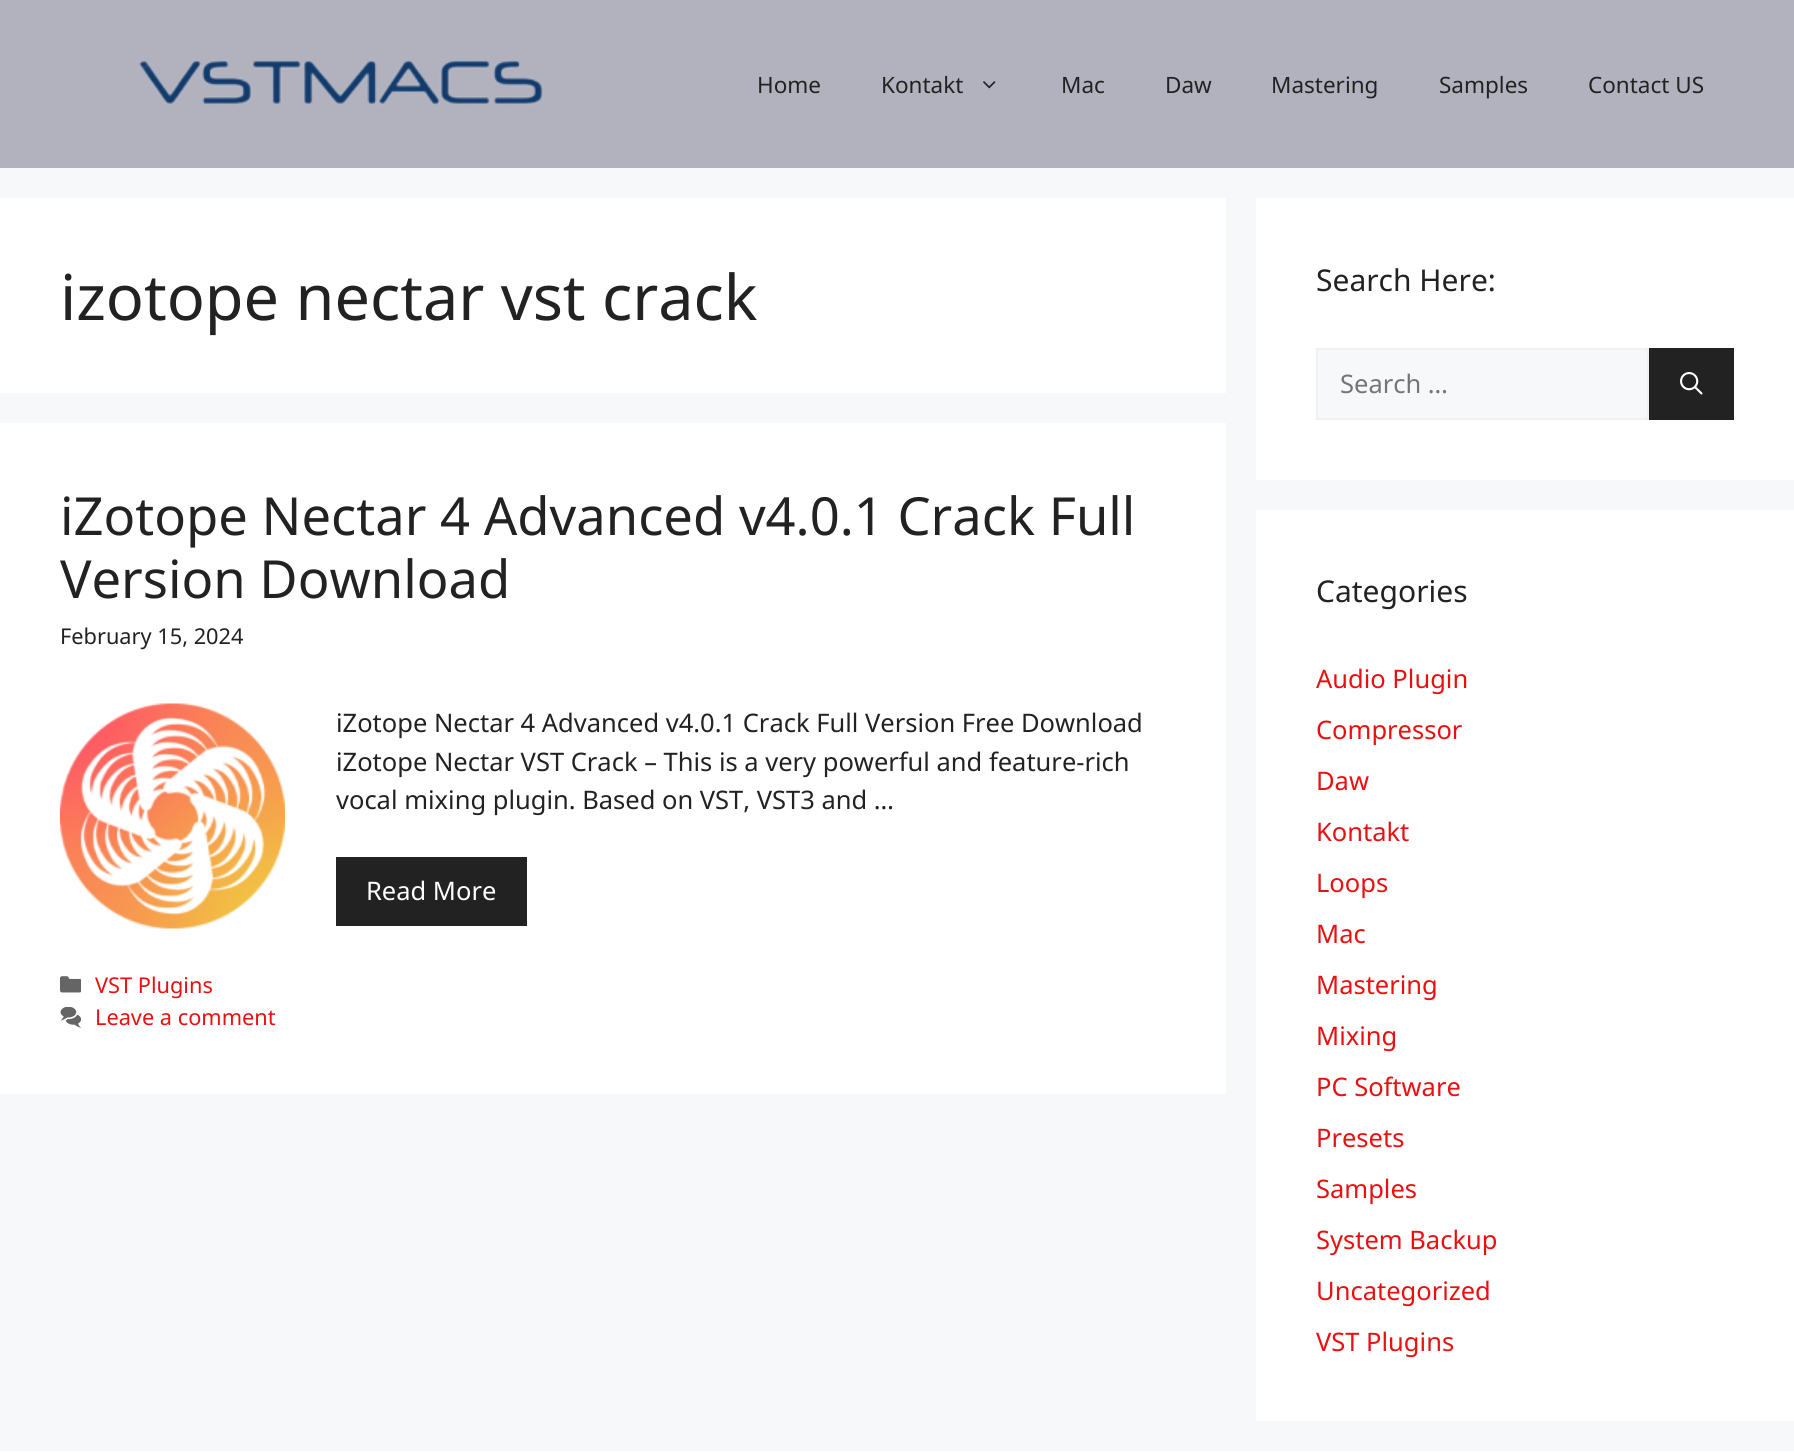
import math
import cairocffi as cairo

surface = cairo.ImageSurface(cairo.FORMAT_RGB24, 1794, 1453)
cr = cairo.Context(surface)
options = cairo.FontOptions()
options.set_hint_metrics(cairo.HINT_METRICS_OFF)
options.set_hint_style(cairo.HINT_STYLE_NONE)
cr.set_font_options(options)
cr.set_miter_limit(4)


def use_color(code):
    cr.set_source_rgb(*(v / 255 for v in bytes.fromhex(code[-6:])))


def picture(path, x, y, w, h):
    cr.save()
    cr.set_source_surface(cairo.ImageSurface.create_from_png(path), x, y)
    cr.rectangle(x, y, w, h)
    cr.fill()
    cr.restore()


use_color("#f7f8f9")
cr.paint()
use_color("#b2b2be")
cr.rectangle(0, 0, 1794, 168)
cr.fill()
picture("img1.png", 139, 60, 404, 45)
cr.select_font_face("Noto Sans")
cr.set_font_size(22.5)
use_color("#222222")
cr.move_to(757, 93)
cr.show_text("Home")
cr.move_to(881, 93)
cr.show_text("Kontakt")
picture("img2.png", 983, 81, 13, 8)
cr.move_to(1061, 93)
cr.show_text("Mac")
cr.move_to(1165, 93)
cr.show_text("Daw")
cr.move_to(1271, 93)
cr.show_text("Mastering")
cr.move_to(1439, 93)
cr.show_text("Samples")
cr.move_to(1588, 93)
cr.show_text("Contact US")
use_color("#ffffff")
cr.rectangle(0, 198, 1226, 195)
cr.fill()
cr.set_font_size(63)
use_color("#222222")
cr.move_to(60, 320)
cr.show_text("izotope nectar vst crack")
use_color("#ffffff")
cr.rectangle(0, 423, 1226, 671)
cr.fill()
cr.set_font_size(52.5)
use_color("#222222")
cr.move_to(60, 535)
cr.show_text("iZotope Nectar 4 Advanced v4.0.1 Crack Full")
cr.move_to(60, 598)
cr.show_text("Version Download")
cr.set_font_size(21.75)
cr.move_to(60, 644)
cr.show_text("February 15, 2024")
picture("img3.png", 60, 703, 225, 226)
cr.set_font_size(25.5)
cr.move_to(336, 732)
cr.show_text("iZotope Nectar 4 Advanced v4.0.1 Crack Full Version Free Download")
cr.move_to(336, 771)
cr.show_text("iZotope Nectar VST Crack – This is a very powerful and feature-rich")
cr.move_to(336, 809)
cr.show_text("vocal mixing plugin. Based on VST, VST3 and …")
cr.rectangle(336, 857, 191, 69)
cr.fill()
use_color("#ffffff")
cr.move_to(366, 900)
cr.show_text("Read More")
picture("img4.png", 60, 976, 21, 17)
cr.set_font_size(21.75)
use_color("#ea1010")
cr.move_to(95, 993)
cr.show_text("VST Plugins")
picture("img5.png", 60, 1007, 21, 21)
cr.move_to(95, 1025)
cr.show_text("Leave a comment")
use_color("#ffffff")
cr.rectangle(1256, 198, 538, 282)
cr.fill()
cr.set_font_size(30)
use_color("#222222")
cr.move_to(1316, 291)
cr.show_text("Search Here:")
use_color("#f7f8f9")
cr.rectangle(1317, 349, 331, 70)
cr.fill_preserve()
use_color("#f0f0f0")
cr.stroke()
cr.set_font_size(25.5)
use_color("#757575")
cr.move_to(1340, 393)
cr.show_text("Search …")
use_color("#222222")
cr.rectangle(1649, 348, 85, 72)
cr.fill()
picture("img6.png", 1680, 372, 23, 23)
use_color("#ffffff")
cr.rectangle(1256, 510, 538, 911)
cr.fill()
cr.set_font_size(30)
use_color("#222222")
cr.move_to(1316, 602)
cr.show_text("Categories")
cr.set_font_size(25.5)
use_color("#ea1010")
cr.move_to(1316, 688)
cr.show_text("Audio Plugin")
cr.move_to(1316, 739)
cr.show_text("Compressor")
cr.move_to(1316, 790)
cr.show_text("Daw")
cr.move_to(1316, 841)
cr.show_text("Kontakt")
cr.move_to(1316, 892)
cr.show_text("Loops")
cr.move_to(1316, 943)
cr.show_text("Mac")
cr.move_to(1316, 994)
cr.show_text("Mastering")
cr.move_to(1316, 1045)
cr.show_text("Mixing")
cr.move_to(1316, 1096)
cr.show_text("PC Software")
cr.move_to(1316, 1147)
cr.show_text("Presets")
cr.move_to(1316, 1198)
cr.show_text("Samples")
cr.move_to(1316, 1249)
cr.show_text("System Backup")
cr.move_to(1316, 1300)
cr.show_text("Uncategorized")
cr.move_to(1316, 1351)
cr.show_text("VST Plugins")
use_color("#ffffff")
cr.rectangle(0, 1451, 1794, 2)
cr.fill()
surface.write_to_png("result.png")
